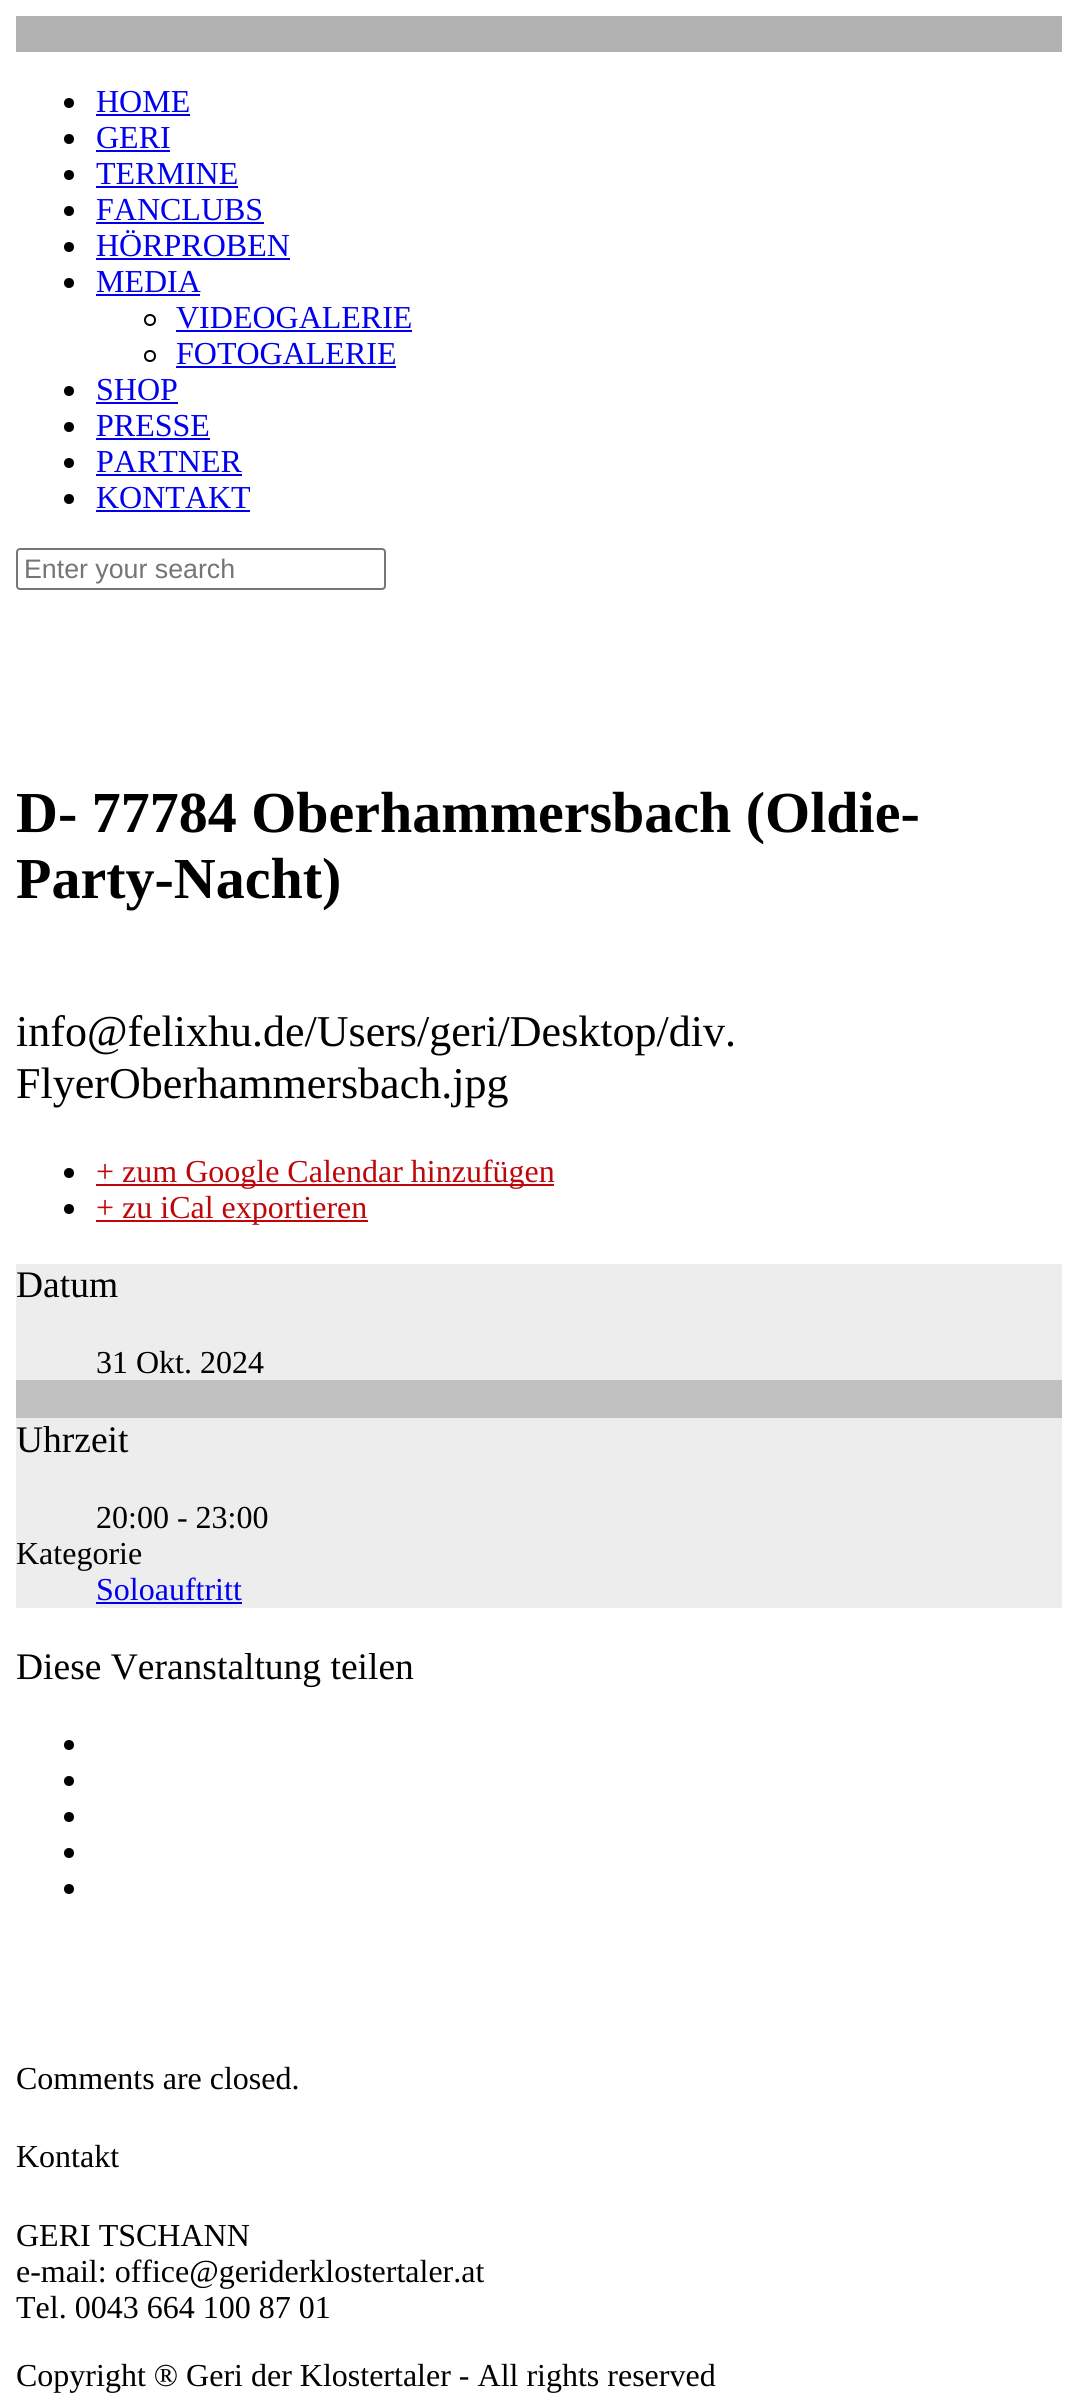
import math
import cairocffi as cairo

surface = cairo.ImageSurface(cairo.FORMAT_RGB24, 1078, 2402)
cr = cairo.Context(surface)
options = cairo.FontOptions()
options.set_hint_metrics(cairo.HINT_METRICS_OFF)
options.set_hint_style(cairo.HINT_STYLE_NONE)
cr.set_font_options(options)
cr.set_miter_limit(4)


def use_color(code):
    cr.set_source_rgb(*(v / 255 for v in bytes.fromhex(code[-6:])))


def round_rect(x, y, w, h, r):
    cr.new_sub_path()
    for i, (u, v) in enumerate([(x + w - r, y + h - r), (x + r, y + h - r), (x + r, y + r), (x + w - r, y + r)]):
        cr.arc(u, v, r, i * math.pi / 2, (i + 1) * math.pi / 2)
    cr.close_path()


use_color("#ffffff")
cr.paint()
use_color("#b2b2b2")
cr.rectangle(16, 16, 1046, 36)
cr.fill()
use_color("#000000")
cr.arc(69, 103, 5, 0, 2 * math.pi)
cr.fill()
cr.select_font_face("Liberation Serif")
cr.set_font_size(32)
use_color("#0000ee")
cr.move_to(96, 112)
cr.show_text("HOME")
cr.rectangle(96, 114, 94, 2)
cr.fill()
use_color("#000000")
cr.arc(69, 139, 5, 0, 2 * math.pi)
cr.fill()
use_color("#0000ee")
cr.move_to(96, 148)
cr.show_text("GERI")
cr.rectangle(96, 150, 74, 2)
cr.fill()
use_color("#000000")
cr.arc(69, 175, 5, 0, 2 * math.pi)
cr.fill()
use_color("#0000ee")
cr.move_to(96, 184)
cr.show_text("TERMINE")
cr.rectangle(96, 186, 142, 2)
cr.fill()
use_color("#000000")
cr.arc(69, 211, 5, 0, 2 * math.pi)
cr.fill()
use_color("#0000ee")
cr.move_to(96, 220)
cr.show_text("FANCLUBS")
cr.rectangle(96, 222, 168, 2)
cr.fill()
use_color("#000000")
cr.arc(69, 247, 5, 0, 2 * math.pi)
cr.fill()
use_color("#0000ee")
cr.move_to(96, 256)
cr.show_text("HÖRPROBEN")
cr.rectangle(96, 258, 194, 2)
cr.fill()
use_color("#000000")
cr.arc(69, 283, 5, 0, 2 * math.pi)
cr.fill()
use_color("#0000ee")
cr.move_to(96, 292)
cr.show_text("MEDIA")
cr.rectangle(96, 294, 104, 2)
cr.fill()
cr.arc(150, 320, 5, 0, 2 * math.pi)
use_color("#000000")
cr.stroke()
use_color("#0000ee")
cr.move_to(176, 328)
cr.show_text("VIDEOGALERIE")
cr.rectangle(176, 330, 236, 2)
cr.fill()
cr.arc(150, 356, 5, 0, 2 * math.pi)
use_color("#000000")
cr.stroke()
use_color("#0000ee")
cr.move_to(176, 364)
cr.show_text("FOTOGALERIE")
cr.rectangle(176, 366, 220, 2)
cr.fill()
use_color("#000000")
cr.arc(69, 391, 5, 0, 2 * math.pi)
cr.fill()
use_color("#0000ee")
cr.move_to(96, 400)
cr.show_text("SHOP")
cr.rectangle(96, 402, 82, 2)
cr.fill()
use_color("#000000")
cr.arc(69, 427, 5, 0, 2 * math.pi)
cr.fill()
use_color("#0000ee")
cr.move_to(96, 436)
cr.show_text("PRESSE")
cr.rectangle(96, 438, 114, 2)
cr.fill()
use_color("#000000")
cr.arc(69, 463, 5, 0, 2 * math.pi)
cr.fill()
use_color("#0000ee")
cr.move_to(96, 472)
cr.show_text("PARTNER")
cr.rectangle(96, 474, 146, 2)
cr.fill()
use_color("#000000")
cr.arc(69, 499, 5, 0, 2 * math.pi)
cr.fill()
use_color("#0000ee")
cr.move_to(96, 508)
cr.show_text("KONTAKT")
cr.rectangle(96, 510, 154, 2)
cr.fill()
round_rect(17, 549, 368, 40, 3)
use_color("#767676")
cr.stroke()
cr.select_font_face("Liberation Sans")
cr.set_font_size(26.75)
use_color("#757575")
cr.move_to(24, 578)
cr.show_text("Enter your search")
cr.select_font_face("Liberation Serif", cairo.FONT_SLANT_NORMAL, cairo.FONT_WEIGHT_BOLD)
cr.set_font_size(58)
use_color("#000000")
cr.move_to(16, 832)
cr.show_text("D- 77784 Oberhammersbach (Oldie-")
cr.move_to(16, 898)
cr.show_text("Party-Nacht)")
cr.select_font_face("Liberation Serif")
cr.set_font_size(44)
cr.move_to(16, 1046)
cr.show_text("info@felixhu.de/Users/geri/Desktop/div.")
cr.move_to(16, 1098)
cr.show_text("FlyerOberhammersbach.jpg")
cr.new_path()
cr.arc(69, 1173, 5, 0, 2 * math.pi)
cr.fill()
use_color("#be070b")
cr.rectangle(96, 1184, 458, 2)
cr.fill()
cr.set_font_size(32)
cr.move_to(96, 1182)
cr.show_text("+ zum Google Calendar hinzufügen")
use_color("#000000")
cr.new_path()
cr.arc(69, 1209, 5, 0, 2 * math.pi)
cr.fill()
use_color("#be070b")
cr.rectangle(96, 1220, 272, 2)
cr.fill()
cr.move_to(96, 1218)
cr.show_text("+ zu iCal exportieren")
use_color("#c1c1c1")
cr.rectangle(16, 1380, 1046, 38)
cr.fill()
use_color("#ededed")
cr.rectangle(16, 1264, 1046, 116)
cr.fill()
cr.set_font_size(37.5)
use_color("#000000")
cr.move_to(16, 1297)
cr.show_text("Datum")
cr.set_font_size(32)
cr.move_to(96, 1373)
cr.show_text("31 Okt. 2024")
use_color("#ededed")
cr.rectangle(16, 1418, 1046, 190)
cr.fill()
cr.set_font_size(37.5)
use_color("#000000")
cr.move_to(16, 1452)
cr.show_text("Uhrzeit")
cr.set_font_size(32)
cr.move_to(96, 1528)
cr.show_text("20:00 - 23:00")
cr.move_to(16, 1564)
cr.show_text("Kategorie")
use_color("#0000ee")
cr.move_to(96, 1600)
cr.show_text("Soloauftritt")
cr.rectangle(96, 1602, 146, 2)
cr.fill()
cr.set_font_size(37.5)
use_color("#000000")
cr.move_to(16, 1679)
cr.show_text("Diese Veranstaltung teilen")
cr.new_path()
cr.arc(69, 1745, 5, 0, 2 * math.pi)
cr.fill()
cr.arc(69, 1781, 5, 0, 2 * math.pi)
cr.fill()
cr.arc(69, 1817, 5, 0, 2 * math.pi)
cr.fill()
cr.arc(69, 1853, 5, 0, 2 * math.pi)
cr.fill()
cr.arc(69, 1889, 5, 0, 2 * math.pi)
cr.fill()
cr.set_font_size(32)
cr.move_to(16, 2089)
cr.show_text("Comments are closed.")
cr.move_to(16, 2167)
cr.show_text("Kontakt")
cr.move_to(16, 2246)
cr.show_text("GERI TSCHANN")
cr.move_to(16, 2282)
cr.show_text("e-mail: office@geriderklostertaler.at")
cr.move_to(16, 2318)
cr.show_text("Tel. 0043 664 100 87 01")
cr.move_to(16, 2386)
cr.show_text("Copyright ® Geri der Klostertaler - All rights reserved")
surface.write_to_png("result.png")
